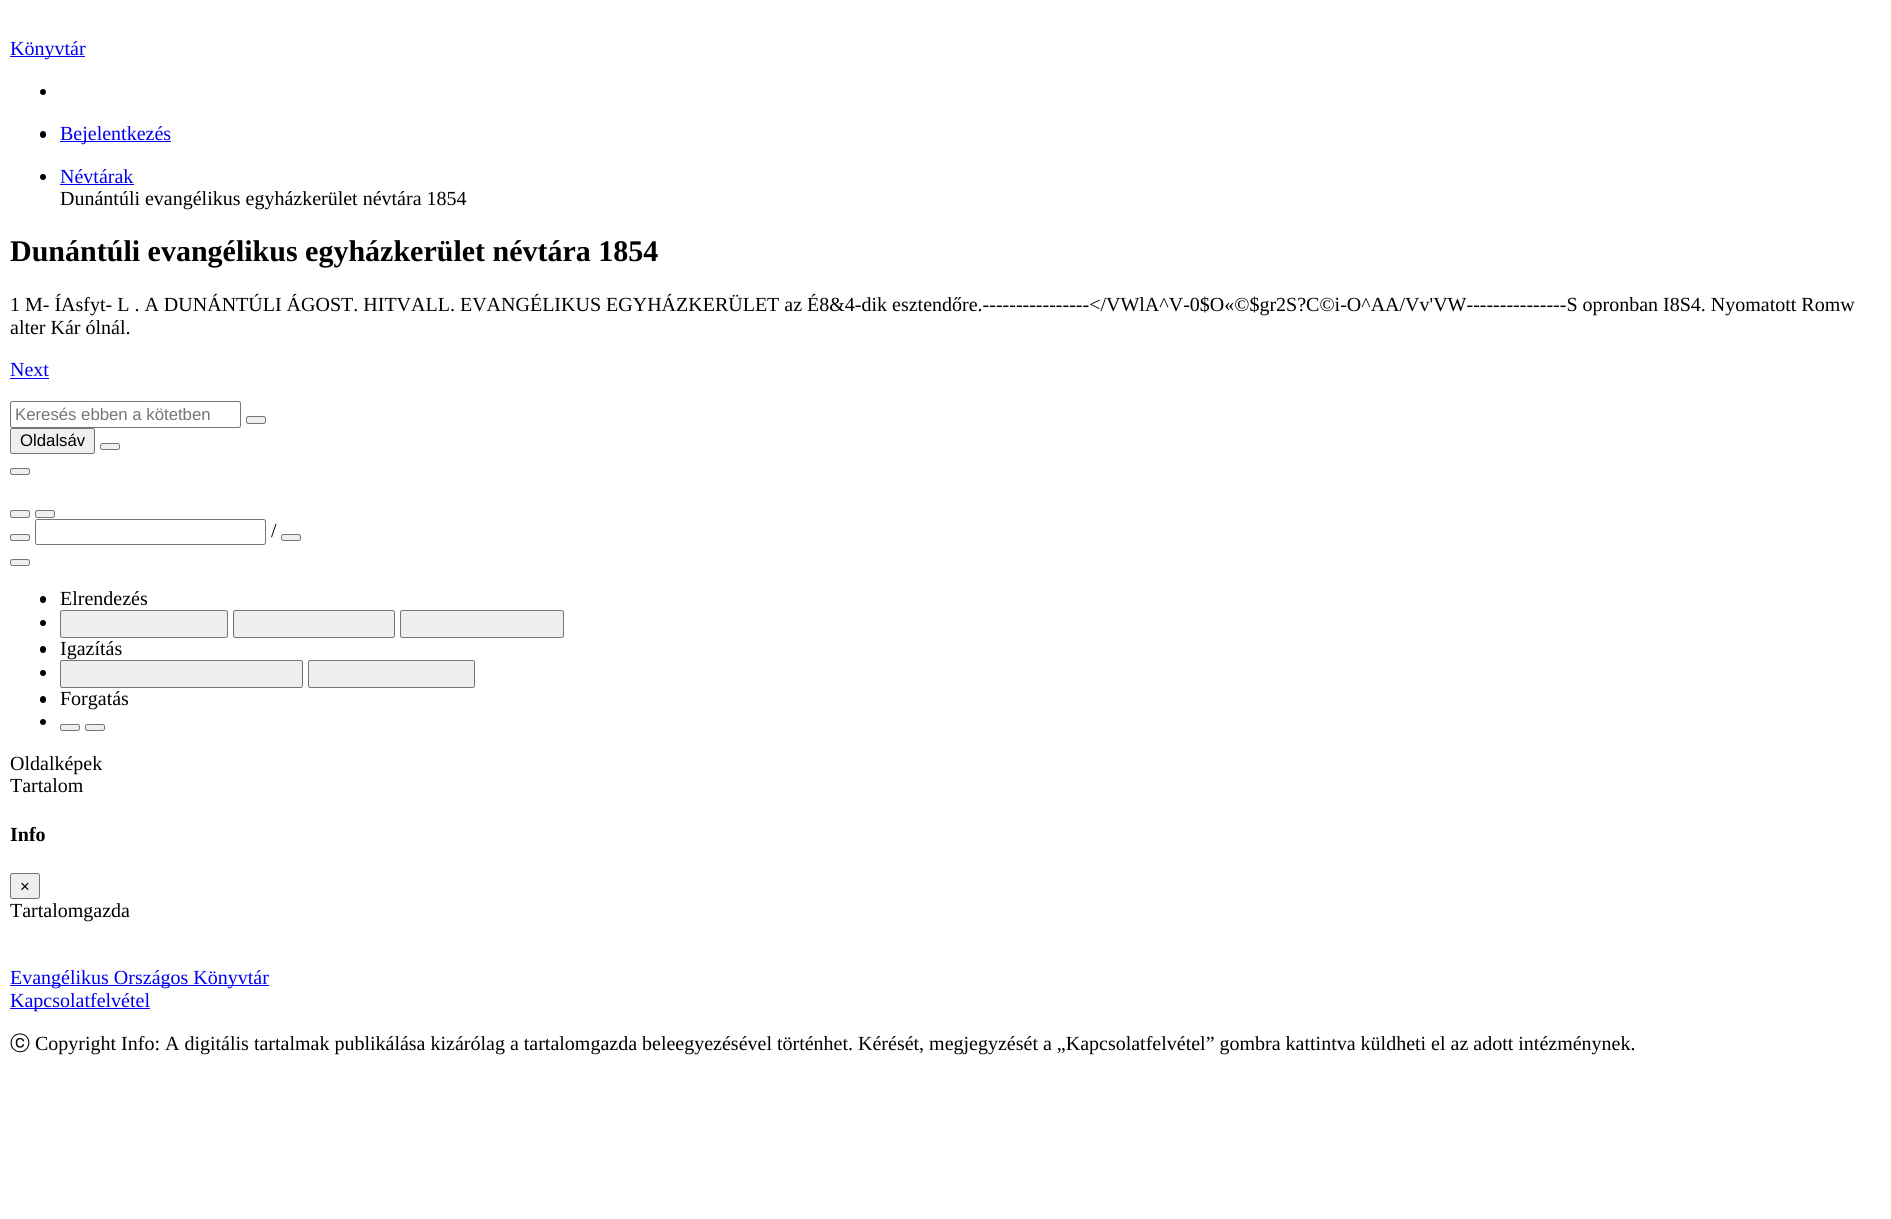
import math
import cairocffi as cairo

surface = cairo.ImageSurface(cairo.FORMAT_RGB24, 1891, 1219)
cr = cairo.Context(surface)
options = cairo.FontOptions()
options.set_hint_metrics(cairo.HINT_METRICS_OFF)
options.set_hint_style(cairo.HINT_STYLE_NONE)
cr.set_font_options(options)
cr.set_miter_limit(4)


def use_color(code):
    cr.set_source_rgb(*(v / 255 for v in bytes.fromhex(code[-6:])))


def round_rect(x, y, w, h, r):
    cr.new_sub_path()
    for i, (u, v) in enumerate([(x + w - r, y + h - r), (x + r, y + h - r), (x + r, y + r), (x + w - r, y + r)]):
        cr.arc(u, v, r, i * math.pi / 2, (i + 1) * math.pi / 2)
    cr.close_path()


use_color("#ffffff")
cr.paint()
use_color("#0000ee")
cr.rectangle(10, 56, 75, 1)
cr.fill()
cr.select_font_face("Liberation Serif")
cr.set_font_size(20)
cr.move_to(10, 55)
cr.show_text("Könyvtár")
use_color("#000000")
cr.new_path()
cr.arc(43, 92, 3, 0, 2 * math.pi)
cr.fill()
round_rect(40, 131, 6, 7, 3)
cr.fill()
use_color("#0000ee")
cr.rectangle(60, 141, 111, 1)
cr.fill()
cr.move_to(60, 140)
cr.show_text("Bejelentkezés")
use_color("#000000")
cr.new_path()
cr.arc(43, 177, 3, 0, 2 * math.pi)
cr.fill()
use_color("#0000ee")
cr.move_to(60, 183)
cr.show_text("Névtárak")
cr.rectangle(60, 184, 74, 1)
cr.fill()
use_color("#000000")
cr.move_to(60, 205)
cr.show_text("Dunántúli evangélikus egyházkerület névtára 1854")
cr.select_font_face("Liberation Serif", cairo.FONT_SLANT_NORMAL, cairo.FONT_WEIGHT_BOLD)
cr.set_font_size(30)
cr.move_to(10, 261)
cr.show_text("Dunántúli evangélikus egyházkerület névtára 1854")
cr.select_font_face("Liberation Serif")
cr.set_font_size(20)
cr.move_to(10, 311)
cr.show_text("1 M- ÍAsfyt- L . A DUNÁNTÚLI ÁGOST. HITVALL. EVANGÉLIKUS EGYHÁZKERÜLET az É8&4-dik esztendőre.----------------</VWlA^V-0$O«©$gr2S?C©i-O^AA/Vv'VW---------------S opronban I8S4. Nyomatott Romw")
cr.move_to(10, 334)
cr.show_text("alter Kár ólnál.")
use_color("#0000ee")
cr.move_to(10, 376)
cr.show_text("Next")
cr.rectangle(10, 378, 39, 1)
cr.fill()
round_rect(10.5, 401.5, 230, 26, 2)
use_color("#767676")
cr.set_line_width(1)
cr.stroke()
cr.select_font_face("Liberation Sans")
cr.set_font_size(16.75)
use_color("#757575")
cr.move_to(15, 420)
cr.show_text("Keresés ebben a kötetben")
use_color("#efefef")
round_rect(246.5, 416.5, 19, 7, 2)
cr.fill_preserve()
use_color("#767676")
cr.stroke()
use_color("#efefef")
round_rect(10.5, 428.5, 84, 25, 2)
cr.fill_preserve()
use_color("#767676")
cr.stroke()
use_color("#000000")
cr.move_to(20, 446)
cr.show_text("Oldalsáv")
use_color("#efefef")
round_rect(100.5, 443.5, 19, 6, 2)
cr.fill_preserve()
use_color("#767676")
cr.stroke()
use_color("#efefef")
round_rect(10.5, 468.5, 19, 6, 2)
cr.fill_preserve()
use_color("#767676")
cr.stroke()
use_color("#efefef")
round_rect(10.5, 510.5, 19, 7, 2)
cr.fill_preserve()
use_color("#767676")
cr.stroke()
use_color("#efefef")
round_rect(35.5, 510.5, 19, 7, 2)
cr.fill_preserve()
use_color("#767676")
cr.stroke()
use_color("#efefef")
round_rect(10.5, 534.5, 19, 6, 2)
cr.fill_preserve()
use_color("#767676")
cr.stroke()
round_rect(35.5, 519.5, 230, 25, 2)
cr.stroke()
cr.select_font_face("Liberation Serif")
cr.set_font_size(20)
use_color("#000000")
cr.move_to(271, 537)
cr.show_text("/")
use_color("#efefef")
round_rect(281.5, 534.5, 19, 6, 2)
cr.fill_preserve()
use_color("#767676")
cr.stroke()
use_color("#efefef")
round_rect(10.5, 559.5, 19, 6, 2)
cr.fill_preserve()
use_color("#767676")
cr.stroke()
use_color("#000000")
round_rect(40, 596, 6, 7, 3)
cr.fill()
cr.move_to(60, 605)
cr.show_text("Elrendezés")
cr.new_path()
cr.arc(43, 623, 3, 0, 2 * math.pi)
cr.fill()
use_color("#efefef")
round_rect(60.5, 610.5, 167, 27, 2)
cr.fill_preserve()
use_color("#767676")
cr.stroke()
use_color("#efefef")
round_rect(233.5, 610.5, 161, 27, 2)
cr.fill_preserve()
use_color("#767676")
cr.stroke()
use_color("#efefef")
round_rect(400.5, 610.5, 163, 27, 2)
cr.fill_preserve()
use_color("#767676")
cr.stroke()
use_color("#000000")
round_rect(40, 646, 6, 7, 3)
cr.fill()
cr.move_to(60, 655)
cr.show_text("Igazítás")
cr.new_path()
cr.arc(43, 673, 3, 0, 2 * math.pi)
cr.fill()
use_color("#efefef")
round_rect(60.5, 660.5, 242, 27, 2)
cr.fill_preserve()
use_color("#767676")
cr.stroke()
use_color("#efefef")
round_rect(308.5, 660.5, 166, 27, 2)
cr.fill_preserve()
use_color("#767676")
cr.stroke()
use_color("#000000")
round_rect(40, 696, 6, 7, 3)
cr.fill()
cr.move_to(60, 705)
cr.show_text("Forgatás")
cr.new_path()
cr.arc(43, 722, 3, 0, 2 * math.pi)
cr.fill()
use_color("#efefef")
round_rect(60.5, 724.5, 19, 6, 2)
cr.fill_preserve()
use_color("#767676")
cr.stroke()
use_color("#efefef")
round_rect(85.5, 724.5, 19, 6, 2)
cr.fill_preserve()
use_color("#767676")
cr.stroke()
use_color("#000000")
cr.move_to(10, 770)
cr.show_text("Oldalképek")
cr.move_to(10, 792)
cr.show_text("Tartalom")
cr.select_font_face("Liberation Serif", cairo.FONT_SLANT_NORMAL, cairo.FONT_WEIGHT_BOLD)
cr.move_to(10, 841)
cr.show_text("Info")
use_color("#efefef")
round_rect(10.5, 873.5, 29, 25, 2)
cr.fill_preserve()
use_color("#767676")
cr.stroke()
cr.select_font_face("Liberation Sans")
cr.set_font_size(16.75)
use_color("#000000")
cr.move_to(20, 892)
cr.show_text("×")
cr.select_font_face("Liberation Serif")
cr.set_font_size(20)
cr.move_to(10, 917)
cr.show_text("Tartalomgazda")
use_color("#0000ee")
cr.rectangle(10, 985, 259, 1)
cr.fill()
cr.move_to(10, 984)
cr.show_text("Evangélikus Országos Könyvtár")
cr.rectangle(10, 1008, 140, 1)
cr.fill()
cr.move_to(10, 1007)
cr.show_text("Kapcsolatfelvétel")
cr.select_font_face("WenQuanYi Zen Hei Medium")
use_color("#000000")
cr.move_to(10, 1050)
cr.show_text("ⓒ")
cr.select_font_face("Liberation Serif")
cr.move_to(35, 1050)
cr.show_text("Copyright Info: A digitális tartalmak publikálása kizárólag a tartalomgazda beleegyezésével történhet. Kérését, megjegyzését a „Kapcsolatfelvétel” gombra kattintva küldheti el az adott intézménynek.")
surface.write_to_png("result.png")
